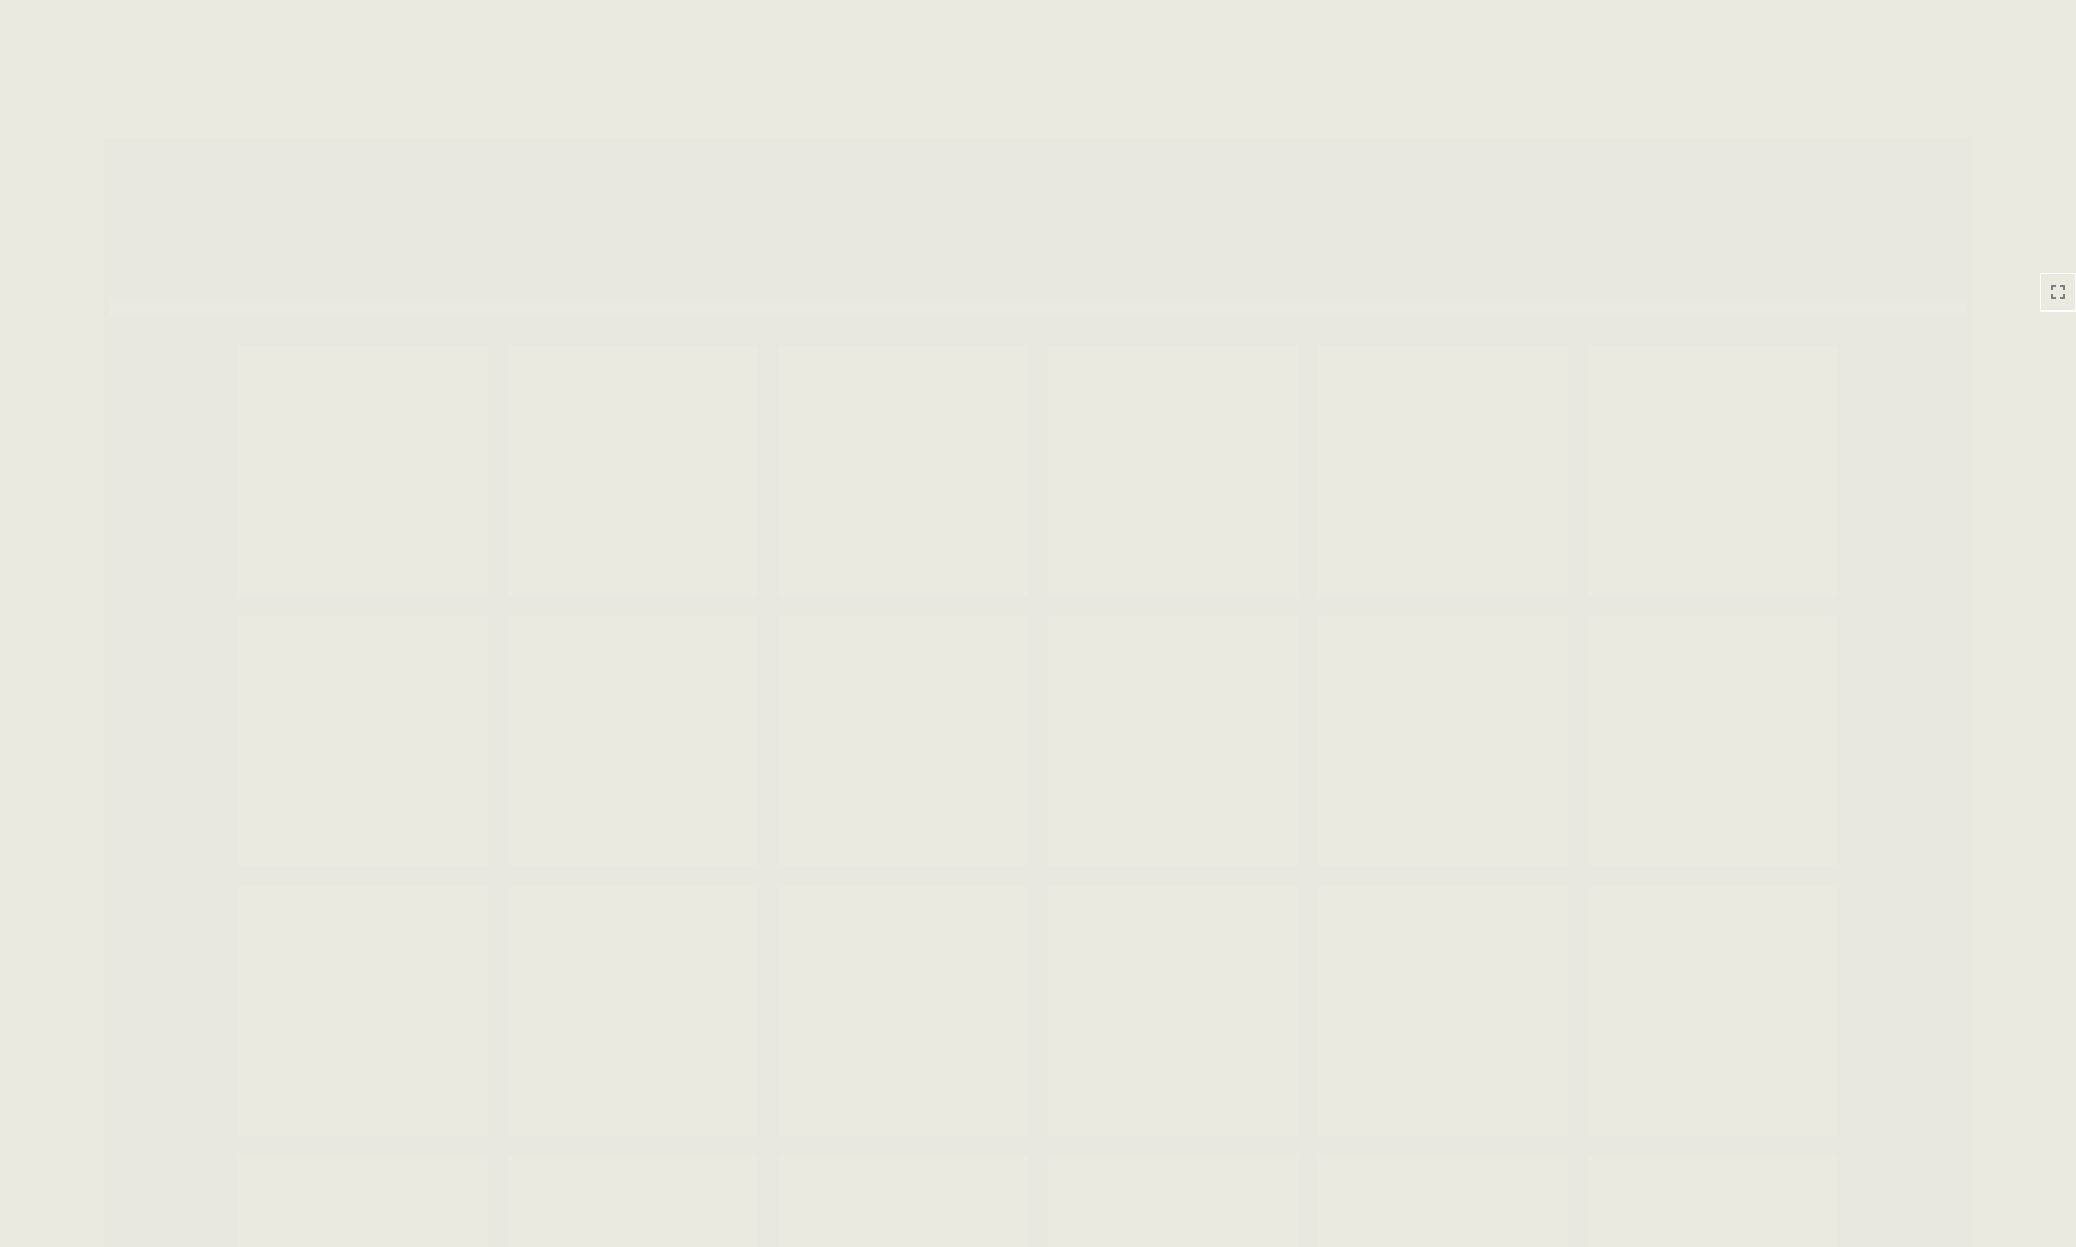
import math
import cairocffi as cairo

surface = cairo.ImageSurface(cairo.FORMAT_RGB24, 2076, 1247)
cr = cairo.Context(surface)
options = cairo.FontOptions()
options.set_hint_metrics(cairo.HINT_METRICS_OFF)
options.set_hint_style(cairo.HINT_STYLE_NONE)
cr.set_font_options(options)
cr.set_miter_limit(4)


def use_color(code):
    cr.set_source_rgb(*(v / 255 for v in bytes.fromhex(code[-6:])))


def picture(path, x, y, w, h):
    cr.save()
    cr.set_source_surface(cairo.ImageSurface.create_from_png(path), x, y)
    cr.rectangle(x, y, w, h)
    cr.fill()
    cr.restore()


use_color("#ece9e1")
cr.paint()
use_color("#e8e7e0")
cr.rectangle(104, 138, 1868, 1109)
cr.fill()
gradient = cairo.LinearGradient(1038, 260, 1038, 316)
gradient.add_color_stop_rgba(0, 0.91, 0.906, 0.878, 1)
gradient.add_color_stop_rgba(1, 0.925, 0.914, 0.882, 1)
cr.set_source(gradient)
cr.rectangle(109, 295, 1858, 21)
cr.fill()
use_color("#ece9e1")
cr.rectangle(238, 346, 250, 250)
cr.fill()
cr.rectangle(508, 346, 250, 250)
cr.fill()
cr.rectangle(778, 346, 250, 250)
cr.fill()
cr.rectangle(1048, 346, 250, 250)
cr.fill()
cr.rectangle(1318, 346, 250, 250)
cr.fill()
cr.rectangle(1588, 346, 250, 250)
cr.fill()
cr.rectangle(238, 616, 250, 250)
cr.fill()
cr.rectangle(508, 616, 250, 250)
cr.fill()
cr.rectangle(778, 616, 250, 250)
cr.fill()
cr.rectangle(1048, 616, 250, 250)
cr.fill()
cr.rectangle(1318, 616, 250, 250)
cr.fill()
cr.rectangle(1588, 616, 250, 250)
cr.fill()
cr.rectangle(238, 886, 250, 250)
cr.fill()
cr.rectangle(508, 886, 250, 250)
cr.fill()
cr.rectangle(778, 886, 250, 250)
cr.fill()
cr.rectangle(1048, 886, 250, 250)
cr.fill()
cr.rectangle(1318, 886, 250, 250)
cr.fill()
cr.rectangle(1588, 886, 250, 250)
cr.fill()
cr.rectangle(238, 1156, 250, 91)
cr.fill()
cr.rectangle(508, 1156, 250, 91)
cr.fill()
cr.rectangle(778, 1156, 250, 91)
cr.fill()
cr.rectangle(1048, 1156, 250, 91)
cr.fill()
cr.rectangle(1318, 1156, 250, 91)
cr.fill()
cr.rectangle(1588, 1156, 250, 91)
cr.fill()
cr.new_path()
cr.move_to(1020.5, 641.5)
cr.curve_to(1011, 632, 1011, 616, 1020.5, 606.5)
cr.set_line_width(1)
cr.stroke()
use_color("#ffffff")
cr.rectangle(2040, 273, 36, 1)
cr.fill()
cr.rectangle(2075, 273, 1, 39)
cr.fill()
cr.rectangle(2040, 273, 1, 39)
cr.fill()
cr.rectangle(2041, 310, 34, 2)
cr.fill()
picture("img1.png", 2051, 285, 14, 14)
surface.write_to_png("result.png")
